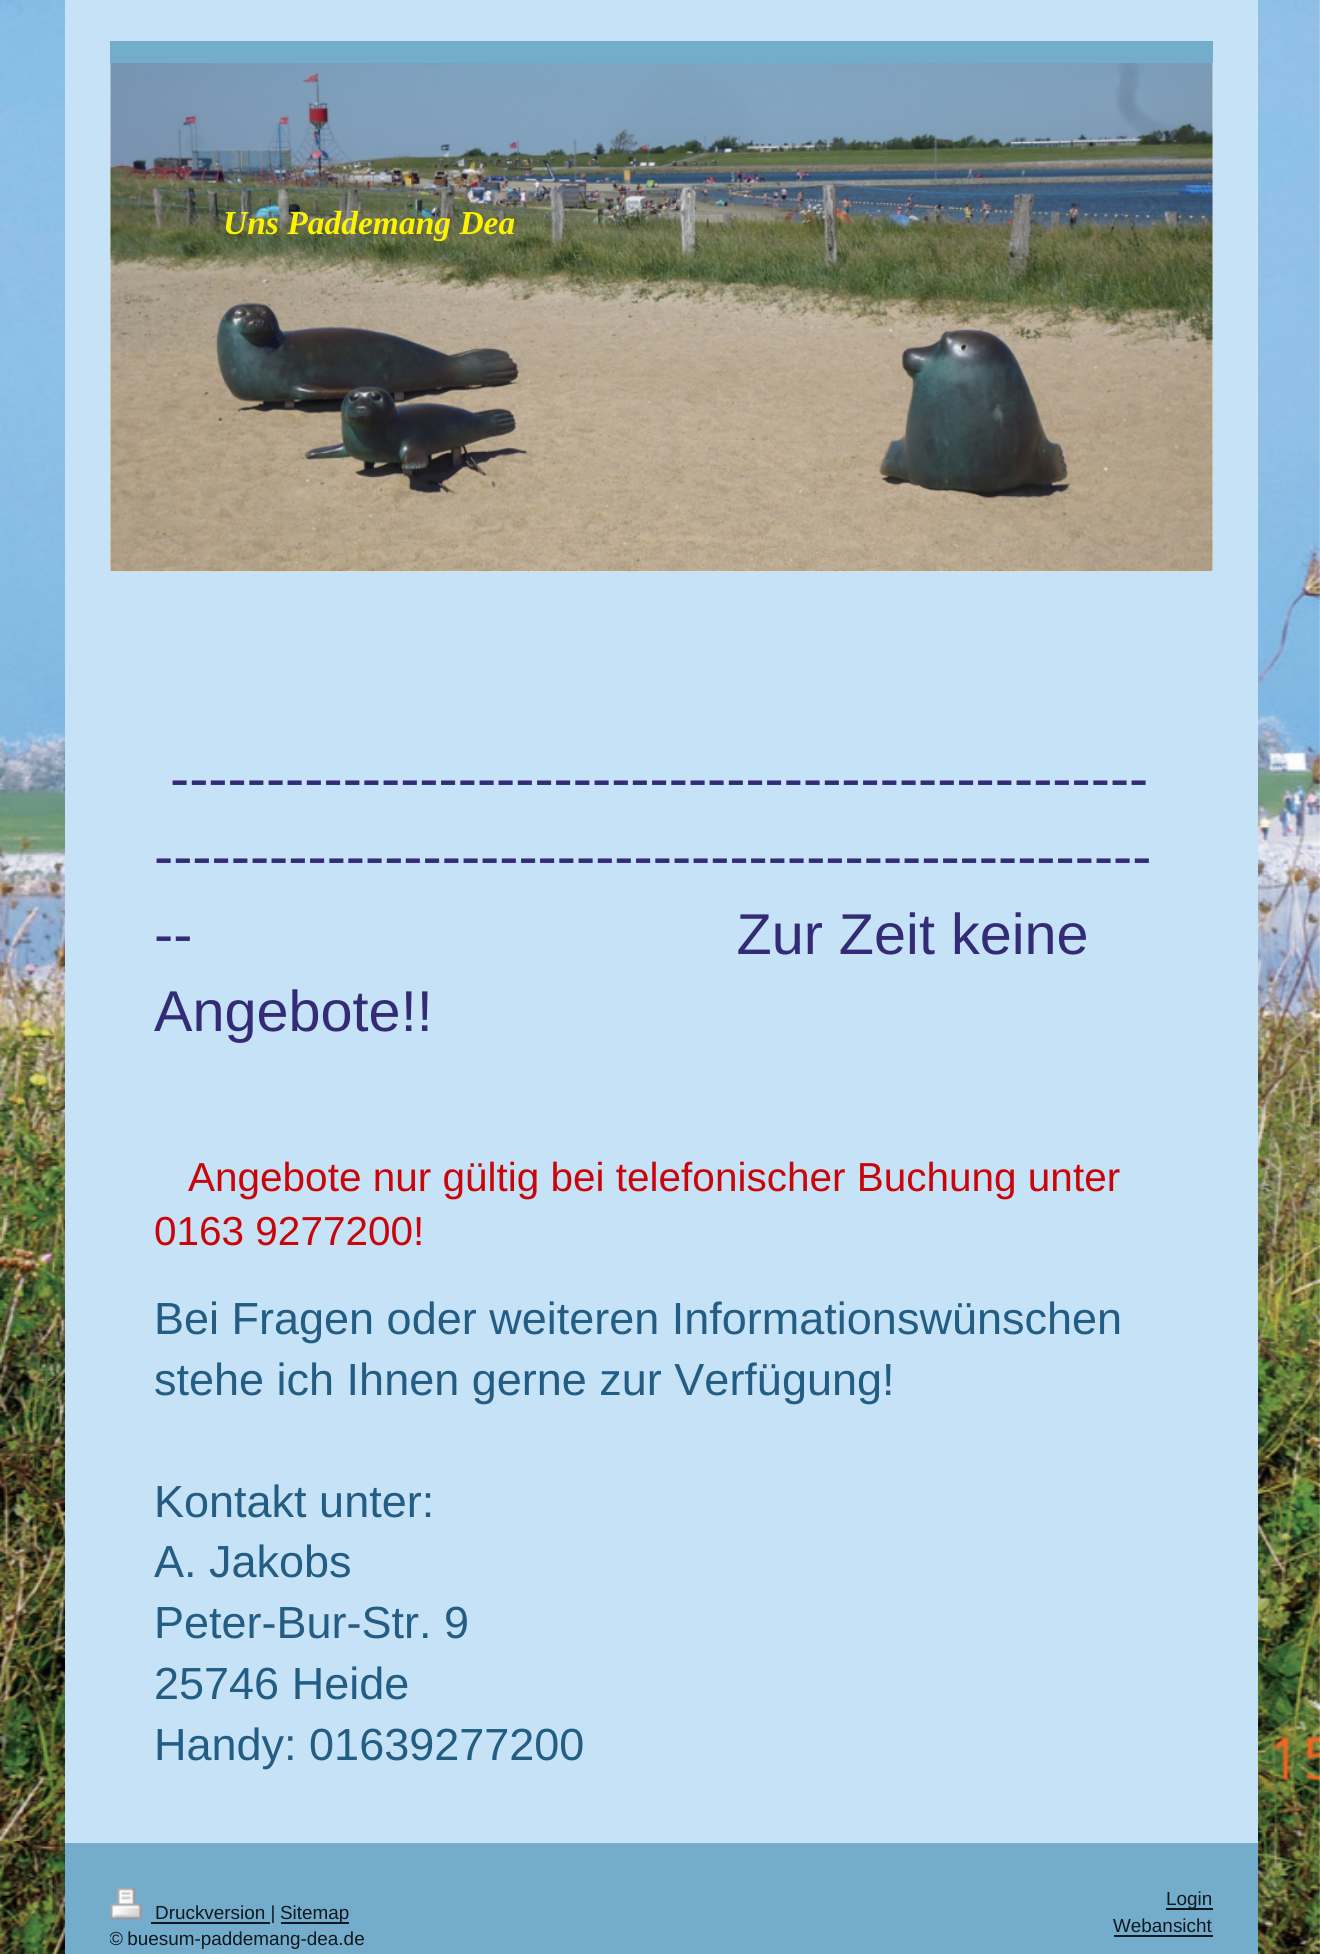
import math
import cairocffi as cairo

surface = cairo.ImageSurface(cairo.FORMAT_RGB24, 1320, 1954)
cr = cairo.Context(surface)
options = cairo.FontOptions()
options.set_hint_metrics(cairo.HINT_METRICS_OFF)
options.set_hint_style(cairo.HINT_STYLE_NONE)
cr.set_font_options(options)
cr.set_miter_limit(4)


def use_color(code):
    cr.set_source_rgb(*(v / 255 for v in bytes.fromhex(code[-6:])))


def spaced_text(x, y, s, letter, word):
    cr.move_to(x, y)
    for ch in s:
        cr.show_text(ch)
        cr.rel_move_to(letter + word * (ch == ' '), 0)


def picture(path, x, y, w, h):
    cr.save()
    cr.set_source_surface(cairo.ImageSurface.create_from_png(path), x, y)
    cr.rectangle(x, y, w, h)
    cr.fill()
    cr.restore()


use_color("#ffffff")
cr.paint()
picture("img1.png", 0, 0, 1320, 1954)
use_color("#c5e2f6")
cr.rectangle(65, 0, 1193, 1843)
cr.fill()
use_color("#74accc")
cr.rectangle(110, 41, 1103, 22)
cr.fill()
use_color("#eeeeee")
cr.rectangle(110, 63, 1103, 509)
cr.fill()
picture("img2.png", 110, 63, 1103, 509)
cr.select_font_face("Liberation Serif", cairo.FONT_SLANT_ITALIC, cairo.FONT_WEIGHT_BOLD)
cr.set_font_size(33.5)
use_color("#fcf302")
cr.move_to(223, 234)
cr.show_text("Uns Paddemang Dea")
cr.select_font_face("Liberation Sans")
cr.set_font_size(57.6)
use_color("#342b77")
cr.move_to(170, 798)
cr.show_text("---------------------------------------------------")
cr.move_to(154, 876)
cr.show_text("----------------------------------------------------")
cr.move_to(154, 954)
cr.show_text("--                                  Zur Zeit keine")
cr.move_to(154, 1031)
cr.show_text("Angebote!!")
cr.set_font_size(40.5)
use_color("#c90509")
cr.move_to(188, 1191)
cr.show_text("Angebote nur gültig bei telefonischer Buchung unter")
cr.move_to(154, 1245)
cr.show_text("0163 9277200!")
cr.set_font_size(45)
use_color("#245d83")
cr.move_to(154, 1334)
cr.show_text("Bei Fragen oder weiteren Informationswünschen")
cr.move_to(154, 1395)
cr.show_text("stehe ich Ihnen gerne zur Verfügung!")
cr.move_to(154, 1517)
cr.show_text("Kontakt unter:")
cr.move_to(154, 1577)
cr.show_text("A. Jakobs")
cr.move_to(154, 1638)
cr.show_text("Peter-Bur-Str. 9")
cr.move_to(154, 1699)
cr.show_text("25746 Heide")
cr.move_to(154, 1760)
cr.show_text("Handy: 01639277200")
use_color("#74accc")
cr.rectangle(65, 1843, 1193, 111)
cr.fill()
picture("img3.png", 110, 1888, 33, 32)
use_color("#0f181e")
cr.rectangle(151, 1922, 119, 2)
cr.fill()
cr.set_font_size(18.9)
cr.move_to(155, 1919)
cr.show_text("Druckversion |")
cr.rectangle(281, 1922, 68, 2)
cr.fill()
cr.move_to(280, 1919)
cr.show_text("Sitemap")
cr.save()
cr.rectangle(110, 1888, 1103, 65)
cr.clip()
spaced_text(109, 1945, "© buesum-paddemang-dea.de", 0, -1)
cr.restore()
cr.rectangle(1166, 1908, 47, 2)
cr.fill()
cr.move_to(1166, 1905)
cr.show_text("Login")
cr.move_to(1113, 1932)
cr.show_text("Webansicht")
cr.rectangle(1114, 1935, 99, 2)
cr.fill()
surface.write_to_png("result.png")
